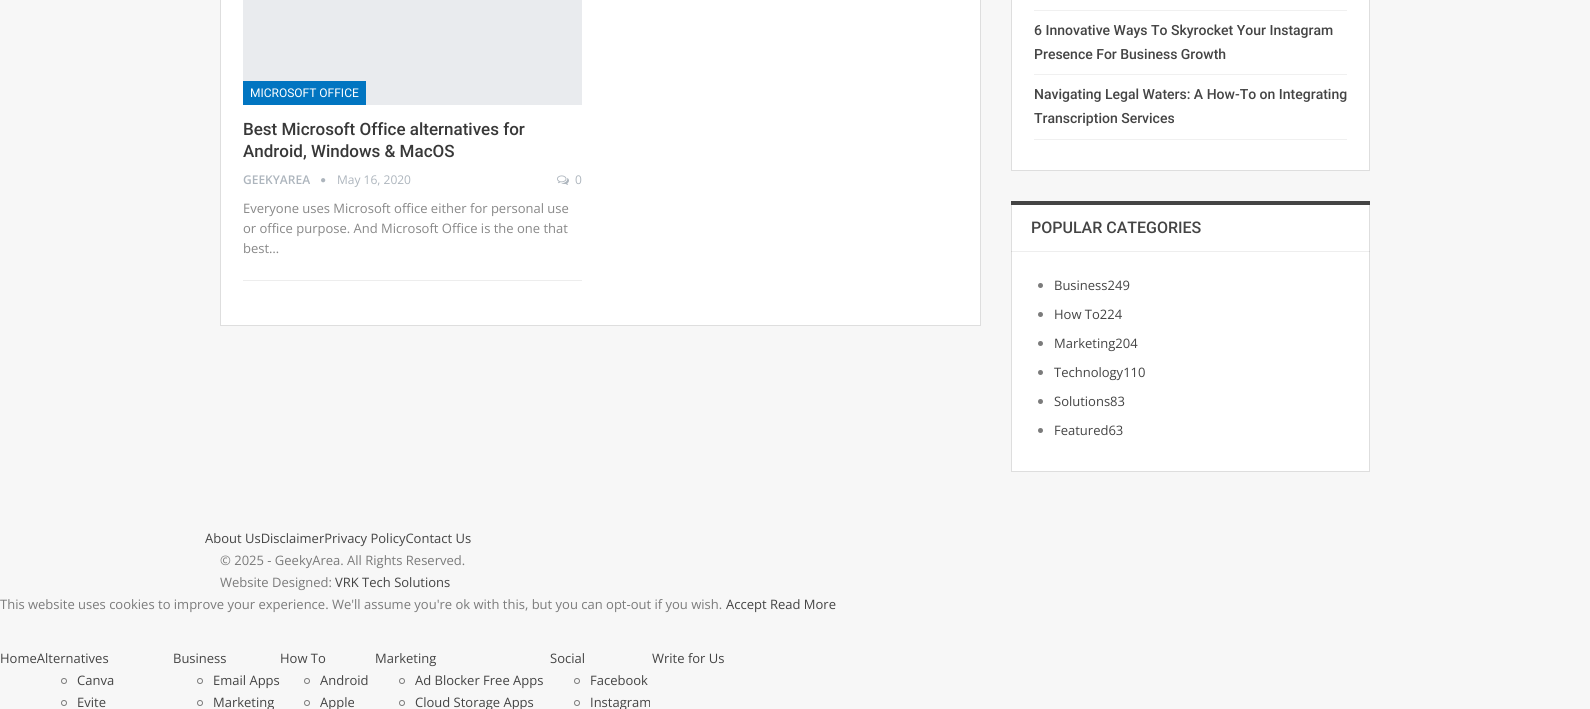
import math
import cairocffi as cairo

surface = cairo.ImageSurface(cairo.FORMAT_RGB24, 1590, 709)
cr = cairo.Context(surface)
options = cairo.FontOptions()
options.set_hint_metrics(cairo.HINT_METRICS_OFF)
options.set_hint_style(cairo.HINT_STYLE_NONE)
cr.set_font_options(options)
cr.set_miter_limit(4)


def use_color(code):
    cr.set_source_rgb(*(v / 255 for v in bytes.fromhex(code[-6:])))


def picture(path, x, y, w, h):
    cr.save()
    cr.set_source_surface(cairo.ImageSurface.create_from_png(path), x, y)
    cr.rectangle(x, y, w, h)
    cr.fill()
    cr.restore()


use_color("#f7f7f7")
cr.paint()
use_color("#ffffff")
cr.rectangle(220.5, -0.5, 760, 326)
cr.fill_preserve()
use_color("#dedede")
cr.set_line_width(1)
cr.stroke()
use_color("#e9ebee")
cr.rectangle(243, 0, 339, 105)
cr.fill()
use_color("#0175c1")
cr.rectangle(243, 81, 123, 24)
cr.fill()
cr.select_font_face("Roboto")
cr.set_font_size(12)
use_color("#ffffff")
cr.move_to(250, 97)
cr.show_text("MICROSOFT OFFICE")
cr.select_font_face("Roboto Medium")
cr.set_font_size(17)
use_color("#383838")
cr.move_to(243, 135)
cr.show_text("Best Microsoft Office alternatives for")
cr.move_to(243, 157)
cr.show_text("Android, Windows & MacOS")
cr.select_font_face("Open Sans SemiBold")
cr.set_font_size(12)
use_color("#adb5bd")
cr.move_to(243, 184)
cr.show_text("GEEKYAREA")
picture("img1.png", 321, 178, 5, 5)
cr.select_font_face("Open Sans")
cr.move_to(337, 184)
cr.show_text("May 16, 2020")
picture("img2.png", 557, 175, 12, 10)
cr.move_to(575, 184)
cr.show_text("0")
use_color("#ededed")
cr.rectangle(243, 280, 339, 1)
cr.fill()
cr.set_font_size(13)
use_color("#888888")
cr.move_to(243, 213)
cr.show_text("Everyone uses Microsoft office either for personal use")
cr.move_to(243, 233)
cr.show_text("or office purpose. And Microsoft Office is the one that")
cr.move_to(243, 253)
cr.show_text("best…")
use_color("#ffffff")
cr.rectangle(1011.5, -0.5, 358, 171)
cr.fill_preserve()
use_color("#dedede")
cr.stroke()
use_color("#f0f0f0")
cr.rectangle(1034, 10, 313, 1)
cr.fill()
cr.rectangle(1034, 74, 313, 1)
cr.fill()
cr.select_font_face("Roboto Medium")
cr.set_font_size(14)
use_color("#444444")
cr.move_to(1034, 35)
cr.show_text("6 Innovative Ways To Skyrocket Your Instagram")
cr.move_to(1034, 59)
cr.show_text("Presence For Business Growth")
use_color("#f0f0f0")
cr.rectangle(1034, 139, 313, 1)
cr.fill()
use_color("#444444")
cr.move_to(1034, 99)
cr.show_text("Navigating Legal Waters: A How-To on Integrating")
cr.move_to(1034, 123)
cr.show_text("Transcription Services")
use_color("#ffffff")
cr.rectangle(1012, 205, 357, 266)
cr.fill()
cr.rectangle(1011.5, 201.5, 358, 270)
use_color("#dedede")
cr.stroke()
use_color("#444444")
cr.rectangle(1011, 201, 359, 4)
cr.fill()
cr.set_font_size(16)
cr.move_to(1031, 233)
cr.show_text("POPULAR CATEGORIES")
cr.set_source_rgba(0, 0, 0, 0.07)
cr.rectangle(1011, 251, 359, 1)
cr.fill()
use_color("#7b7b7b")
cr.arc(1040.5, 285.5, 2.5, 0, 2 * math.pi)
cr.fill()
cr.select_font_face("Open Sans")
cr.set_font_size(13)
use_color("#444444")
cr.move_to(1054, 290)
cr.show_text("Business249")
use_color("#7b7b7b")
cr.new_path()
cr.arc(1040.5, 314.5, 2.5, 0, 2 * math.pi)
cr.fill()
use_color("#444444")
cr.move_to(1054, 319)
cr.show_text("How To224")
use_color("#7b7b7b")
cr.new_path()
cr.arc(1040.5, 343.5, 2.5, 0, 2 * math.pi)
cr.fill()
use_color("#444444")
cr.move_to(1054, 348)
cr.show_text("Marketing204")
use_color("#7b7b7b")
cr.new_path()
cr.arc(1040.5, 372.5, 2.5, 0, 2 * math.pi)
cr.fill()
use_color("#444444")
cr.move_to(1054, 377)
cr.show_text("Technology110")
use_color("#7b7b7b")
cr.new_path()
cr.arc(1040.5, 401.5, 2.5, 0, 2 * math.pi)
cr.fill()
use_color("#444444")
cr.move_to(1054, 406)
cr.show_text("Solutions83")
use_color("#7b7b7b")
cr.new_path()
cr.arc(1040.5, 430.5, 2.5, 0, 2 * math.pi)
cr.fill()
use_color("#444444")
cr.move_to(1054, 435)
cr.show_text("Featured63")
cr.move_to(205, 543)
cr.show_text("About UsDisclaimerPrivacy PolicyContact Us")
use_color("#7b7b7b")
cr.move_to(220, 565)
cr.show_text("© 2025 - GeekyArea. All Rights Reserved.")
cr.move_to(220, 587)
cr.show_text("Website Designed:")
use_color("#444444")
cr.move_to(335, 587)
cr.show_text("VRK Tech Solutions")
use_color("#7b7b7b")
cr.move_to(0, 609)
cr.show_text("This website uses cookies to improve your experience. We'll assume you're ok with this, but you can opt-out if you wish.")
use_color("#444444")
cr.move_to(726, 609)
cr.show_text("Accept Read More")
cr.move_to(0, 663)
cr.show_text("HomeAlternatives")
cr.move_to(173, 663)
cr.show_text("Business")
cr.new_path()
cr.arc(200, 681, 2.5, 0, 2 * math.pi)
use_color("#7b7b7b")
cr.stroke()
use_color("#444444")
cr.move_to(213, 685)
cr.show_text("Email Apps")
cr.new_path()
cr.arc(200, 703, 2.5, 0, 2 * math.pi)
use_color("#7b7b7b")
cr.stroke()
use_color("#444444")
cr.move_to(213, 707)
cr.show_text("Marketing")
cr.move_to(280, 663)
cr.show_text("How To")
cr.new_path()
cr.arc(307, 681, 2.5, 0, 2 * math.pi)
use_color("#7b7b7b")
cr.stroke()
use_color("#444444")
cr.move_to(320, 685)
cr.show_text("Android")
cr.new_path()
cr.arc(307, 703, 2.5, 0, 2 * math.pi)
use_color("#7b7b7b")
cr.stroke()
use_color("#444444")
cr.move_to(320, 707)
cr.show_text("Apple")
cr.move_to(375, 663)
cr.show_text("Marketing")
cr.new_path()
cr.arc(402, 681, 2.5, 0, 2 * math.pi)
use_color("#7b7b7b")
cr.stroke()
use_color("#444444")
cr.move_to(415, 685)
cr.show_text("Ad Blocker Free Apps")
cr.new_path()
cr.arc(402, 703, 2.5, 0, 2 * math.pi)
use_color("#7b7b7b")
cr.stroke()
use_color("#444444")
cr.move_to(415, 707)
cr.show_text("Cloud Storage Apps")
cr.move_to(550, 663)
cr.show_text("Social")
cr.new_path()
cr.arc(577, 681, 2.5, 0, 2 * math.pi)
use_color("#7b7b7b")
cr.stroke()
use_color("#444444")
cr.move_to(590, 685)
cr.show_text("Facebook")
cr.new_path()
cr.arc(577, 703, 2.5, 0, 2 * math.pi)
use_color("#7b7b7b")
cr.stroke()
use_color("#444444")
cr.move_to(590, 707)
cr.show_text("Instagram")
cr.move_to(652, 663)
cr.show_text("Write for Us")
cr.new_path()
cr.arc(64, 681, 2.5, 0, 2 * math.pi)
use_color("#7b7b7b")
cr.stroke()
use_color("#444444")
cr.move_to(77, 685)
cr.show_text("Canva")
cr.new_path()
cr.arc(64, 703, 2.5, 0, 2 * math.pi)
use_color("#7b7b7b")
cr.stroke()
use_color("#444444")
cr.move_to(77, 707)
cr.show_text("Evite")
surface.write_to_png("result.png")
